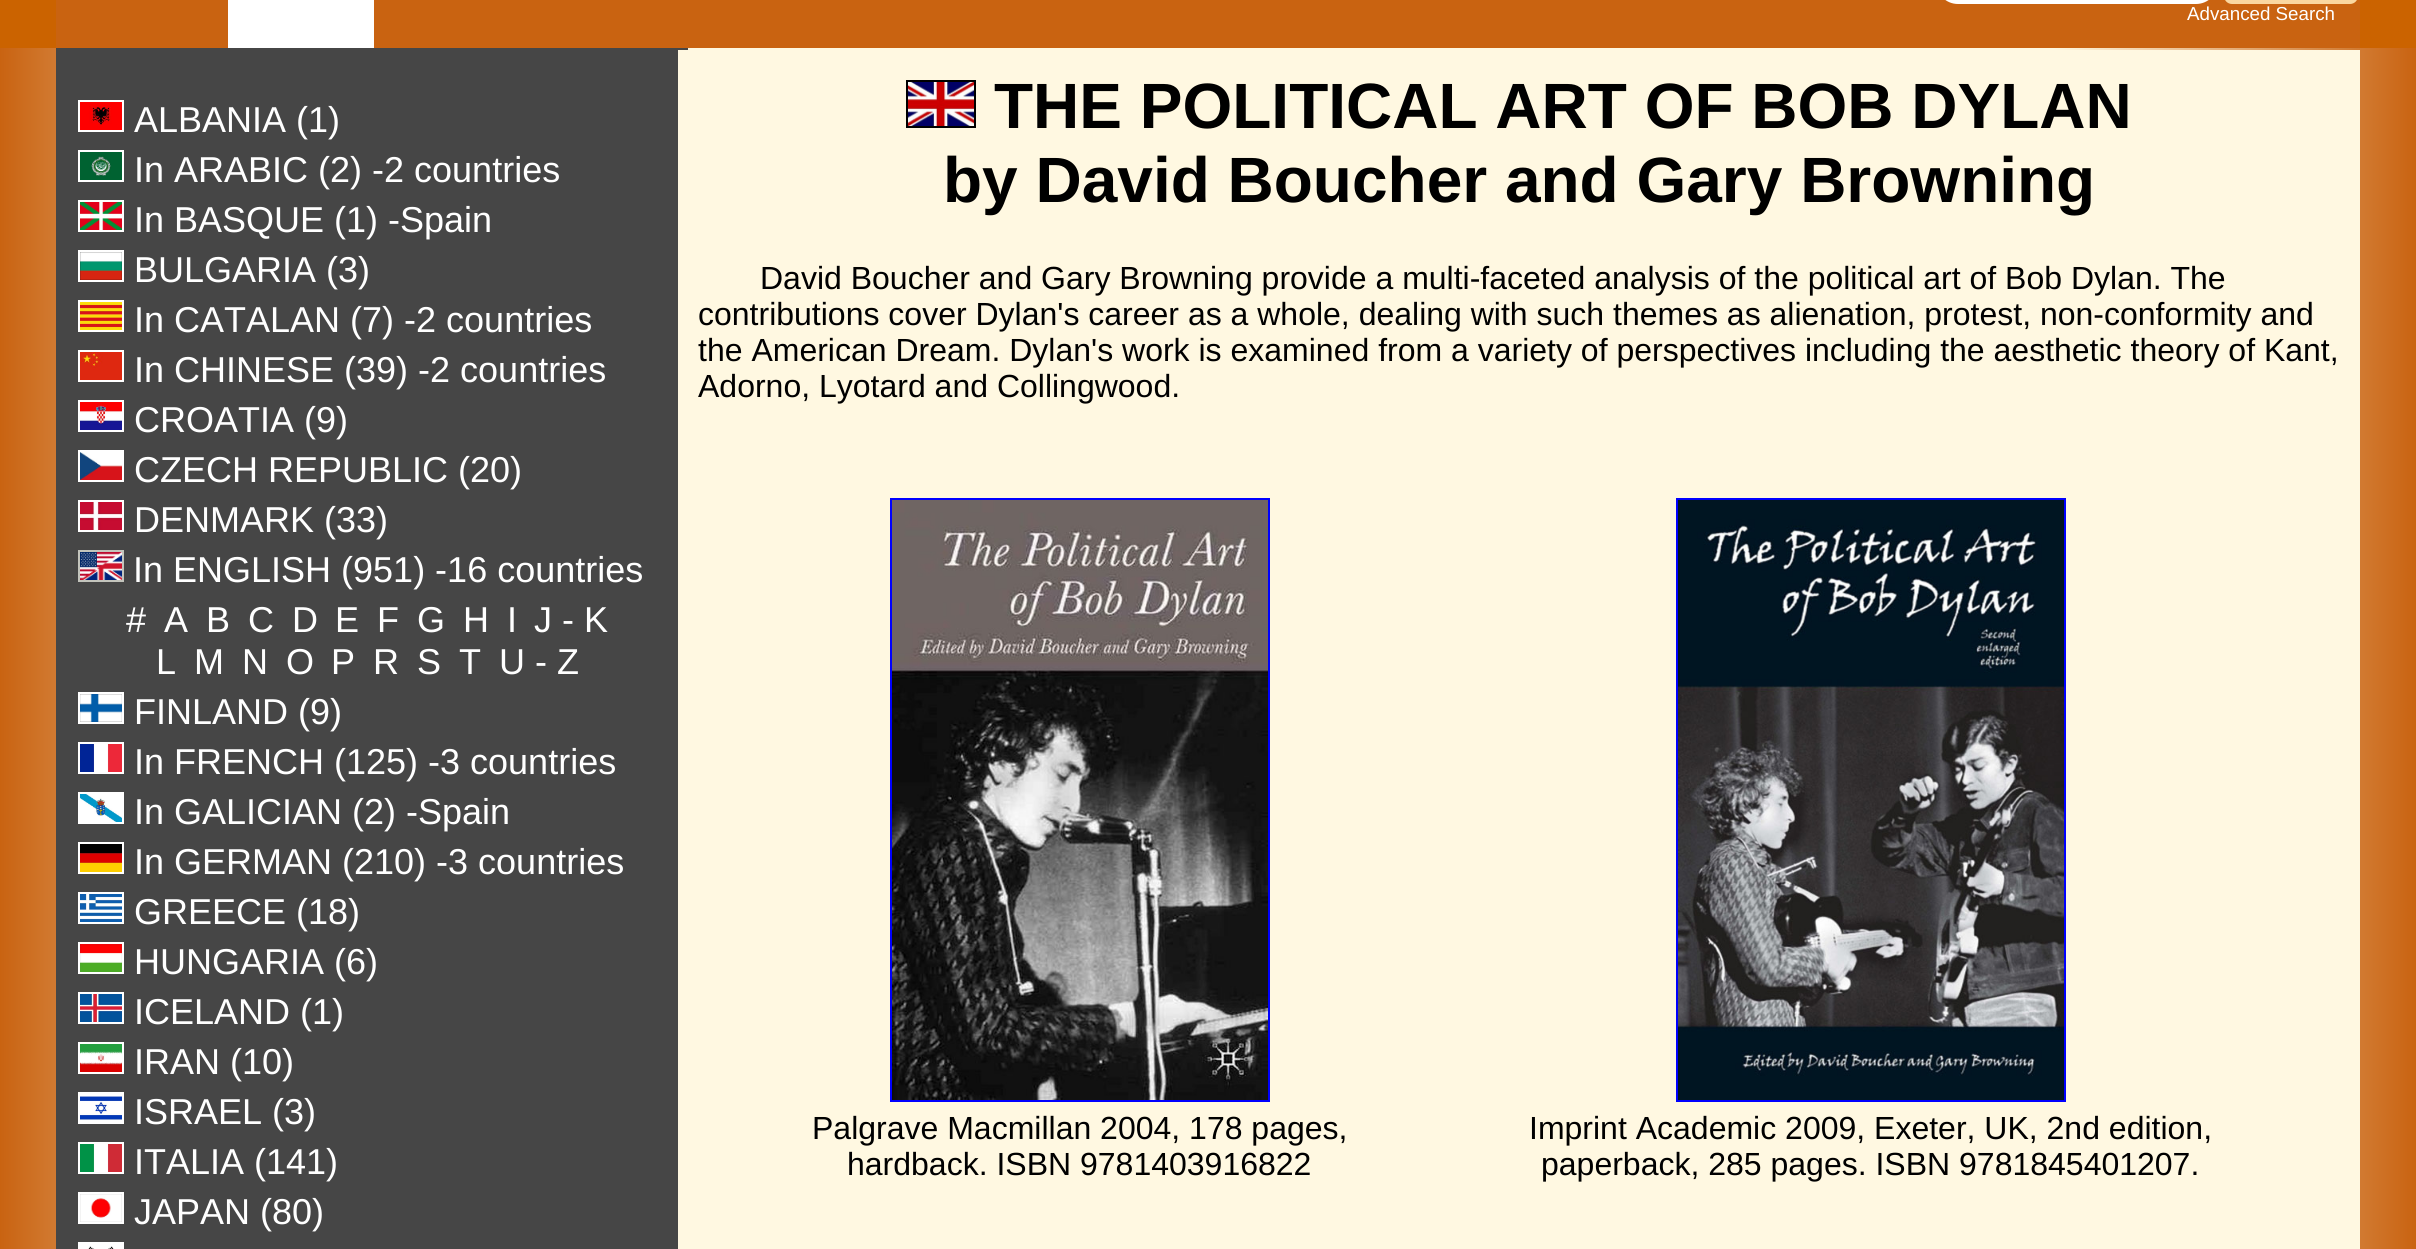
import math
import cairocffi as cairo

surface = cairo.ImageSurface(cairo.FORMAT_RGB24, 2416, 1249)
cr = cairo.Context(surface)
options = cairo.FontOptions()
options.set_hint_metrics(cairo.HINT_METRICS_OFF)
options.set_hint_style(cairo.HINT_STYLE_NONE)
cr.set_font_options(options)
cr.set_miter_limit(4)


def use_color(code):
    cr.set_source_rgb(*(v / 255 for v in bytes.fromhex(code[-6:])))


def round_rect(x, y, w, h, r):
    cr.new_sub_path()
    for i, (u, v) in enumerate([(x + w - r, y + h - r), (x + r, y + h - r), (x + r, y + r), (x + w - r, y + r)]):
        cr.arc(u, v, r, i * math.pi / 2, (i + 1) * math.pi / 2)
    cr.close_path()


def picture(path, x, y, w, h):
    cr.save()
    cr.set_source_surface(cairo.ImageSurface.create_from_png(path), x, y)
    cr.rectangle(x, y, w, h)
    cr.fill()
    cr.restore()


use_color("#ffffff")
cr.paint()
gradient = cairo.LinearGradient(0, 625, 2416, 625)
gradient.add_color_stop_rgba(0, 0.788, 0.388, 0.067, 1)
gradient.add_color_stop_rgba(0.15, 1, 0.973, 0.882, 1)
gradient.add_color_stop_rgba(0.85, 1, 0.973, 0.882, 1)
gradient.add_color_stop_rgba(1, 0.788, 0.388, 0.067, 1)
cr.set_source(gradient)
cr.rectangle(0, 48, 2416, 1201)
cr.fill()
use_color("#cb6300")
cr.rectangle(0, 0, 2416, 48)
cr.fill()
use_color("#c96311")
cr.rectangle(56, 0, 2304, 48)
cr.fill()
use_color("#ffffff")
cr.rectangle(228, 0, 146, 48)
cr.fill()
round_rect(1936, -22, 282, 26, 22)
cr.fill()
use_color("#fad7a0")
round_rect(2224, -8, 134, 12, 8)
cr.fill()
cr.select_font_face("Liberation Sans")
cr.set_font_size(18.75)
use_color("#ffffff")
cr.move_to(2187, 20)
cr.show_text("Advanced Search")
use_color("#464646")
cr.rectangle(56, 48, 632, 1201)
cr.fill()
cr.rectangle(79, 101, 44, 30)
use_color("#ffffff")
cr.stroke()
picture("img1.png", 80, 102, 42, 28)
cr.set_font_size(36)
cr.move_to(134, 132)
cr.show_text("ALBANIA (1)")
cr.rectangle(79, 151, 44, 30)
cr.stroke()
picture("img2.png", 80, 152, 42, 28)
cr.move_to(134, 182)
cr.show_text("In ARABIC (2) -2 countries")
cr.rectangle(79, 201, 44, 30)
cr.stroke()
picture("img3.png", 80, 202, 42, 28)
cr.move_to(134, 232)
cr.show_text("In BASQUE (1) -Spain")
cr.rectangle(79, 251, 44, 30)
cr.stroke()
picture("img4.png", 80, 252, 42, 28)
cr.move_to(134, 282)
cr.show_text("BULGARIA (3)")
cr.rectangle(79, 301, 44, 30)
cr.stroke()
picture("img5.png", 80, 302, 42, 28)
cr.move_to(134, 332)
cr.show_text("In CATALAN (7) -2 countries")
cr.rectangle(79, 351, 44, 30)
cr.stroke()
picture("img6.png", 80, 352, 42, 28)
cr.move_to(134, 382)
cr.show_text("In CHINESE (39) -2 countries")
cr.rectangle(79, 401, 44, 30)
cr.stroke()
picture("img7.png", 80, 402, 42, 28)
cr.move_to(134, 432)
cr.show_text("CROATIA (9)")
cr.rectangle(79, 451, 44, 30)
cr.stroke()
picture("img8.png", 80, 452, 42, 28)
cr.move_to(134, 482)
cr.show_text("CZECH REPUBLIC (20)")
cr.rectangle(79, 501, 44, 30)
cr.stroke()
picture("img9.png", 80, 502, 42, 28)
cr.move_to(134, 532)
cr.show_text("DENMARK (33)")
cr.rectangle(79, 551, 44, 30)
use_color("#c3c4bc")
cr.stroke()
picture("img10.png", 80, 552, 42, 28)
use_color("#ffffff")
cr.move_to(133, 582)
cr.show_text("In ENGLISH (951) -16 countries")
cr.move_to(126, 632)
cr.show_text("#")
cr.move_to(164, 632)
cr.show_text("A")
cr.move_to(206, 632)
cr.show_text("B")
cr.move_to(248, 632)
cr.show_text("C")
cr.move_to(292, 632)
cr.show_text("D")
cr.move_to(335, 632)
cr.show_text("E")
cr.move_to(377, 632)
cr.show_text("F")
cr.move_to(417, 632)
cr.show_text("G")
cr.move_to(463, 632)
cr.show_text("H")
cr.move_to(507, 632)
cr.show_text("I")
cr.move_to(534, 632)
cr.show_text("J - K")
cr.move_to(156, 674)
cr.show_text("L")
cr.move_to(194, 674)
cr.show_text("M")
cr.move_to(242, 674)
cr.show_text("N")
cr.move_to(286, 674)
cr.show_text("O")
cr.move_to(331, 674)
cr.show_text("P")
cr.move_to(373, 674)
cr.show_text("R")
cr.move_to(417, 674)
cr.show_text("S")
cr.move_to(459, 674)
cr.show_text("T")
cr.move_to(499, 674)
cr.show_text("U - Z")
cr.rectangle(79, 693, 44, 30)
cr.stroke()
picture("img11.png", 80, 694, 42, 28)
cr.move_to(134, 724)
cr.show_text("FINLAND (9)")
cr.rectangle(79, 743, 44, 30)
cr.stroke()
picture("img12.png", 80, 744, 42, 28)
cr.move_to(134, 774)
cr.show_text("In FRENCH (125) -3 countries")
cr.rectangle(79, 793, 44, 30)
cr.stroke()
picture("img13.png", 80, 794, 42, 28)
cr.move_to(134, 824)
cr.show_text("In GALICIAN (2) -Spain")
cr.rectangle(79, 843, 44, 30)
cr.stroke()
picture("img14.png", 80, 844, 42, 28)
cr.move_to(134, 874)
cr.show_text("In GERMAN (210) -3 countries")
cr.rectangle(79, 893, 44, 30)
cr.stroke()
picture("img15.png", 80, 894, 42, 28)
cr.move_to(134, 924)
cr.show_text("GREECE (18)")
cr.rectangle(79, 943, 44, 30)
cr.stroke()
picture("img16.png", 80, 944, 42, 28)
cr.move_to(134, 974)
cr.show_text("HUNGARIA (6)")
cr.rectangle(79, 993, 44, 30)
cr.stroke()
picture("img17.png", 80, 994, 42, 28)
cr.move_to(134, 1024)
cr.show_text("ICELAND (1)")
cr.rectangle(79, 1043, 44, 30)
cr.stroke()
picture("img18.png", 80, 1044, 42, 28)
cr.move_to(134, 1074)
cr.show_text("IRAN (10)")
cr.rectangle(79, 1093, 44, 30)
cr.stroke()
picture("img19.png", 80, 1094, 42, 28)
cr.move_to(134, 1124)
cr.show_text("ISRAEL (3)")
cr.rectangle(79, 1143, 44, 30)
cr.stroke()
picture("img20.png", 80, 1144, 42, 28)
cr.move_to(134, 1174)
cr.show_text("ITALIA (141)")
cr.rectangle(79, 1193, 44, 30)
cr.stroke()
picture("img21.png", 80, 1194, 42, 28)
cr.move_to(134, 1224)
cr.show_text("JAPAN (80)")
cr.rectangle(79, 1243, 44, 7)
cr.stroke()
picture("img22.png", 80, 1244, 42, 5)
use_color("#fff8e1")
cr.rectangle(678, 50, 1682, 1199)
cr.fill()
cr.rectangle(907, 81, 68, 46)
use_color("#000000")
cr.stroke()
picture("img23.png", 908, 82, 66, 44)
cr.select_font_face("Liberation Sans", cairo.FONT_SLANT_NORMAL, cairo.FONT_WEIGHT_BOLD)
cr.set_font_size(64)
cr.move_to(994, 128)
cr.show_text("THE POLITICAL ART OF BOB DYLAN")
cr.move_to(943, 202)
cr.show_text("by David Boucher and Gary Browning")
cr.select_font_face("Liberation Sans")
cr.set_font_size(32)
cr.move_to(760, 289)
cr.show_text("David Boucher and Gary Browning provide a multi-faceted analysis of the political art of Bob Dylan. The")
cr.move_to(698, 325)
cr.show_text("contributions cover Dylan's career as a whole, dealing with such themes as alienation, protest, non-conformity and")
cr.move_to(698, 361)
cr.show_text("the American Dream. Dylan's work is examined from a variety of perspectives including the aesthetic theory of Kant,")
cr.move_to(698, 397)
cr.show_text("Adorno, Lyotard and Collingwood.")
cr.rectangle(891, 499, 378, 602)
use_color("#0000ff")
cr.stroke()
picture("img24.png", 892, 500, 376, 600)
use_color("#000000")
cr.move_to(812, 1139)
cr.show_text("Palgrave Macmillan 2004, 178 pages,")
cr.move_to(847, 1175)
cr.show_text("hardback. ISBN 9781403916822")
cr.rectangle(1677, 499, 388, 602)
use_color("#0000ff")
cr.stroke()
picture("img25.png", 1678, 500, 386, 600)
use_color("#000000")
cr.move_to(1529, 1139)
cr.show_text("Imprint Academic 2009, Exeter, UK, 2nd edition,")
cr.move_to(1541, 1175)
cr.show_text("paperback, 285 pages. ISBN 9781845401207.")
surface.write_to_png("result.png")
